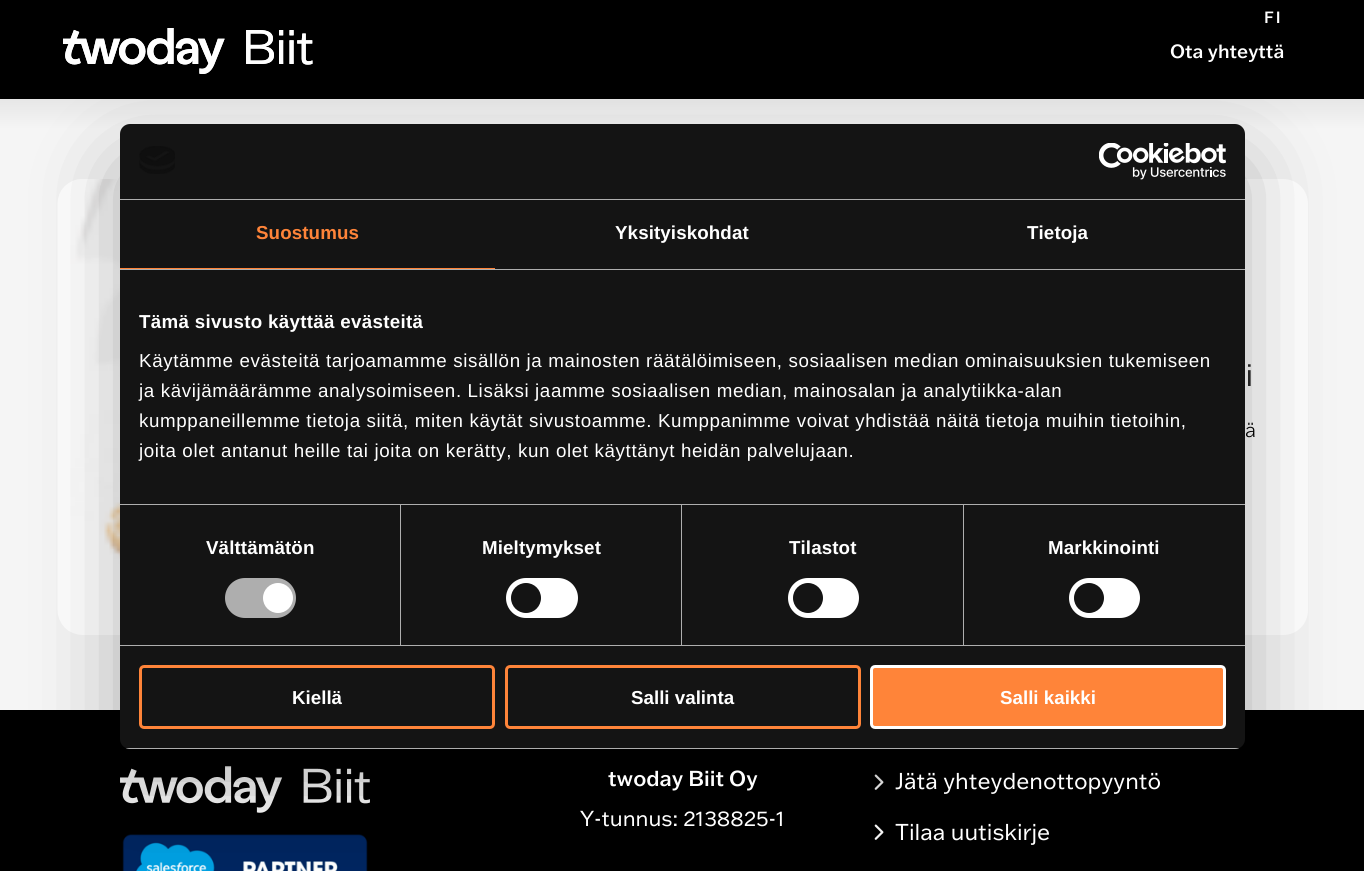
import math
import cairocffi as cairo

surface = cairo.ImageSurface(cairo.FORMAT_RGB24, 1364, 871)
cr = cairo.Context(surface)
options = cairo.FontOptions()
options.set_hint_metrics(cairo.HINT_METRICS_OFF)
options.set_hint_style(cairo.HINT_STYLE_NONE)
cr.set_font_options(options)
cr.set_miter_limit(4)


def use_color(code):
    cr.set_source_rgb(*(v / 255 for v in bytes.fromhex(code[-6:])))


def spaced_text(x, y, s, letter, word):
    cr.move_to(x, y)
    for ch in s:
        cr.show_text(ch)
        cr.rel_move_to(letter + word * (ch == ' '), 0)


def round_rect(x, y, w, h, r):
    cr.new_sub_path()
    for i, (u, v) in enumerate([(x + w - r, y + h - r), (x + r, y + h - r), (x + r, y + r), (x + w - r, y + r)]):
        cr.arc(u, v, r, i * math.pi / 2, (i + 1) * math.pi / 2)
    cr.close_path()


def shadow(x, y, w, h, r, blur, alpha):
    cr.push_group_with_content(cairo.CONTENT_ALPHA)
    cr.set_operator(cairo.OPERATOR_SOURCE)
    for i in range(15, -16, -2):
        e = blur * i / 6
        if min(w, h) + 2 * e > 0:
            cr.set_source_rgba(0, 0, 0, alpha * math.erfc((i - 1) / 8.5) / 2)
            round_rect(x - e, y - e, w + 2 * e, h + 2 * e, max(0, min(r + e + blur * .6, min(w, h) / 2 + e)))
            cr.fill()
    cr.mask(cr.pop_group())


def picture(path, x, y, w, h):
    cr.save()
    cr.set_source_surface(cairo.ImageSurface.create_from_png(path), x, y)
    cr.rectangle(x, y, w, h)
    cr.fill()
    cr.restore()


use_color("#000000")
cr.paint()
picture("img1.png", 63, 28, 250, 46)
picture("img2.png", 63, 28, 250, 46)
cr.select_font_face("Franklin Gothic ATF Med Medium")
cr.set_font_size(16)
use_color("#ffffff")
spaced_text(1264, 23, "FI", 2, 0)
cr.set_font_size(18.75)
cr.move_to(1170, 58)
cr.show_text("Ota yhteyttä")
gradient = cairo.LinearGradient(683, -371, 683, 129)
gradient.add_color_stop_rgba(0, 0, 0, 0, 1)
gradient.add_color_stop_rgba(1, 0.961, 0.961, 0.961, 1)
cr.set_source(gradient)
cr.rectangle(0, 99, 1364, 30)
cr.fill()
use_color("#f5f5f5")
cr.rectangle(0, 129, 1364, 581)
cr.fill()
picture("img5.png", 57, 179, 63, 456)
use_color("#ffffff")
cr.new_path()
cr.move_to(683, 179)
cr.line_to(1283, 179)
cr.curve_to(1297, 179, 1308, 190, 1308, 204)
cr.line_to(1308, 610)
cr.curve_to(1308, 624, 1297, 635, 1283, 635)
cr.line_to(683, 635)
cr.close_path()
cr.fill()
picture("img6.png", 120, 766, 250, 47)
picture("img7.png", 122, 834, 246, 37)
picture("img8.png", 874, 774, 10, 16)
picture("img8.png", 874, 824, 10, 16)
use_color("#000000")
shadow(120, 164, 1125, 625, 10, 42.5, 0.3)
use_color("#141414")
round_rect(120, 124, 1125, 625, 10)
cr.fill()
use_color("#aeaeae")
cr.rectangle(120, 199, 1125, 1)
cr.fill()
picture("img3.png", 139, 146, 36, 28)
picture("img4.png", 1099, 143, 127, 37)
cr.rectangle(120, 269, 1125, 1)
cr.fill()
use_color("#ff8439")
cr.rectangle(120, 268, 375, 1)
cr.fill()
cr.select_font_face("Liberation Sans", cairo.FONT_SLANT_NORMAL, cairo.FONT_WEIGHT_BOLD)
spaced_text(256, 239, "Suostumus", 0.1, 0)
use_color("#ffffff")
spaced_text(615, 239, "Yksityiskohdat", 0.1, 0)
spaced_text(1027, 239, "Tietoja", 0.1, 0)
use_color("#aeaeae")
cr.rectangle(120, 504, 1125, 1)
cr.fill()
use_color("#ffffff")
spaced_text(139, 328, "Tämä sivusto käyttää evästeitä", 0.3, 0)
cr.select_font_face("Liberation Sans")
spaced_text(139, 367, "Käytämme evästeitä tarjoamamme sisällön ja mainosten räätälöimiseen, sosiaalisen median ominaisuuksien tukemiseen", 0.62, 0)
spaced_text(139, 397, "ja kävijämäärämme analysoimiseen. Lisäksi jaamme sosiaalisen median, mainosalan ja analytiikka-alan", 0.62, 0)
spaced_text(139, 427, "kumppaneillemme tietoja siitä, miten käytät sivustoamme. Kumppanimme voivat yhdistää näitä tietoja muihin tietoihin,", 0.62, 0)
spaced_text(139, 457, "joita olet antanut heille tai joita on kerätty, kun olet käyttänyt heidän palvelujaan.", 0.62, 0)
use_color("#aeaeae")
cr.rectangle(120, 645, 1125, 1)
cr.fill()
cr.rectangle(400, 505, 1, 140)
cr.fill()
cr.select_font_face("Liberation Sans", cairo.FONT_SLANT_NORMAL, cairo.FONT_WEIGHT_BOLD)
use_color("#ffffff")
spaced_text(206, 554, "Välttämätön", 0.1, 0)
use_color("#aeaeae")
round_rect(225, 578, 71, 40, 20)
cr.fill()
use_color("#ffffff")
cr.arc(278, 598, 15, 0, 2 * math.pi)
cr.fill()
use_color("#aeaeae")
cr.rectangle(681, 505, 1, 140)
cr.fill()
use_color("#ffffff")
spaced_text(482, 554, "Mieltymykset", 0.1, 0)
round_rect(506, 578, 72, 40, 20)
cr.fill()
use_color("#141414")
cr.arc(526, 598, 15, 0, 2 * math.pi)
cr.fill()
use_color("#aeaeae")
cr.rectangle(963, 505, 1, 140)
cr.fill()
use_color("#ffffff")
spaced_text(789, 554, "Tilastot", 0.1, 0)
round_rect(788, 578, 71, 40, 20)
cr.fill()
use_color("#141414")
cr.arc(808, 598, 15, 0, 2 * math.pi)
cr.fill()
use_color("#ffffff")
spaced_text(1048, 554, "Markkinointi", 0.1, 0)
round_rect(1069, 578, 71, 40, 20)
cr.fill()
use_color("#141414")
cr.arc(1089, 598, 15, 0, 2 * math.pi)
cr.fill()
cr.save()
round_rect(120, 124, 1125, 625, 10)
cr.clip()
use_color("#aeaeae")
cr.rectangle(120, 748, 1125, 1)
cr.fill()
cr.restore()
round_rect(140.5, 666.5, 353, 61, 3.5)
use_color("#ff8439")
cr.set_line_width(3)
cr.stroke()
use_color("#ffffff")
cr.move_to(292, 704)
cr.show_text("Kiellä")
round_rect(506.5, 666.5, 353, 61, 3.5)
use_color("#ff8439")
cr.stroke()
use_color("#ffffff")
cr.move_to(631, 704)
cr.show_text("Salli valinta")
use_color("#ff8439")
round_rect(871.5, 666.5, 353, 61, 3.5)
cr.fill_preserve()
use_color("#ffffff")
cr.stroke()
cr.move_to(1000, 704)
cr.show_text("Salli kaikki")
cr.select_font_face("Liberation Sans")
cr.set_font_size(30)
use_color("#232323")
cr.move_to(1246, 386)
cr.show_text("i")
cr.select_font_face("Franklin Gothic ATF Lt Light")
cr.set_font_size(20)
use_color("#000000")
cr.move_to(1245, 437)
cr.show_text("ä")
cr.select_font_face("Franklin Gothic ATF Med Medium")
cr.set_font_size(21.25)
use_color("#ffffff")
cr.move_to(608, 786)
cr.show_text("twoday Biit Oy")
cr.select_font_face("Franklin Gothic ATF")
cr.move_to(580, 826)
cr.show_text("Y-tunnus: 2138825-1")
cr.set_font_size(22.5)
cr.move_to(895, 789)
cr.show_text("Jätä yhteydenottopyyntö")
cr.move_to(895, 840)
cr.show_text("Tilaa uutiskirje")
surface.write_to_png("result.png")
